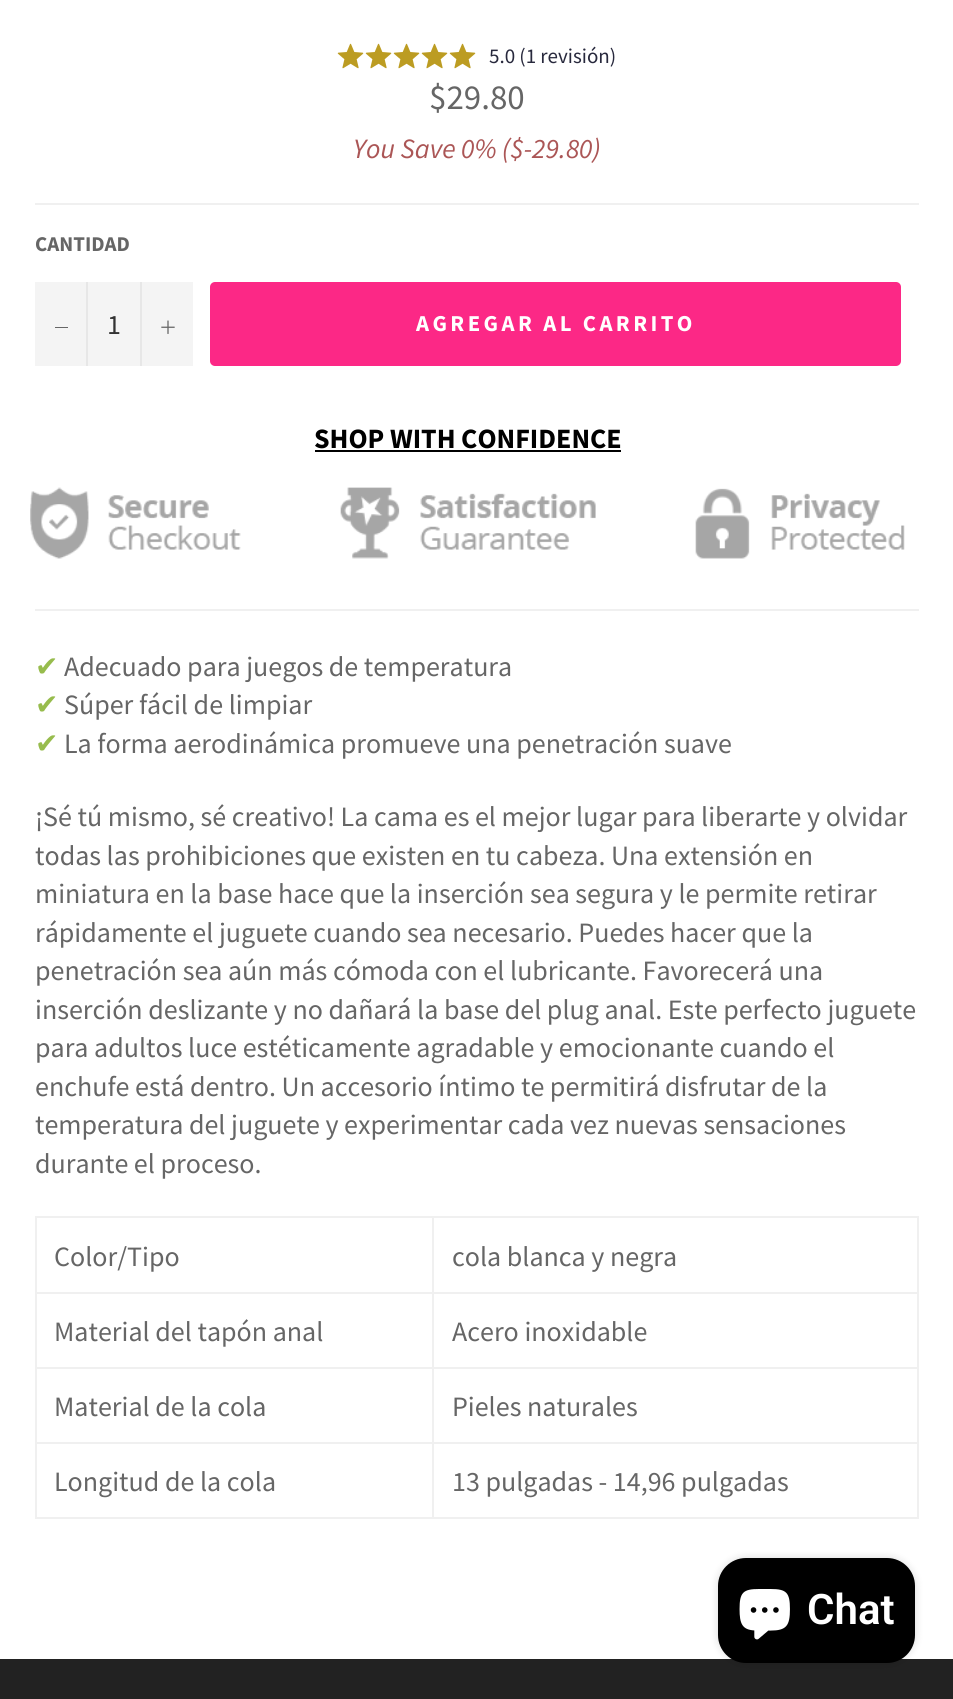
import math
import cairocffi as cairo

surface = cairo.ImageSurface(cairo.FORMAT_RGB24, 953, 1699)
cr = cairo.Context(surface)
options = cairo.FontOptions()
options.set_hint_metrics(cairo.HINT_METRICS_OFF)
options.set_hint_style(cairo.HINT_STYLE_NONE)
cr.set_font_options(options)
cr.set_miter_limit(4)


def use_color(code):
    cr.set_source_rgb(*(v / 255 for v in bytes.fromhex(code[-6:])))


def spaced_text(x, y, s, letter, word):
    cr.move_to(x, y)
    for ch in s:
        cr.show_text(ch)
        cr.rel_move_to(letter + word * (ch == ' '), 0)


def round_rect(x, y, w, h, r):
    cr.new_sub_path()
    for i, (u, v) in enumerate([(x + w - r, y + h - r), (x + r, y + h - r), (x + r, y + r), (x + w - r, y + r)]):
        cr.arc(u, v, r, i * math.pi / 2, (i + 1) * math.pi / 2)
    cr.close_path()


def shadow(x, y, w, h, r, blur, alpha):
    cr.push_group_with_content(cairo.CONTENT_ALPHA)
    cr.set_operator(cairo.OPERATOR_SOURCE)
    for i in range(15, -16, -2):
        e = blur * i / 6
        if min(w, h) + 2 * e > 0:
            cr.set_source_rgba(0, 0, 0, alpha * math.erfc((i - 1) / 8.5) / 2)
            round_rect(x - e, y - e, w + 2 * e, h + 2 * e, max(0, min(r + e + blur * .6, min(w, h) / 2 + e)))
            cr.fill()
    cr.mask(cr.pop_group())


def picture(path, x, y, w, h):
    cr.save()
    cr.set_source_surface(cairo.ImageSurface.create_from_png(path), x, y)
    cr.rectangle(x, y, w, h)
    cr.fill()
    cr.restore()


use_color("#ffffff")
cr.paint()
picture("img1.png", 337, 43, 27, 26)
picture("img1.png", 365, 43, 27, 26)
picture("img1.png", 393, 43, 27, 26)
picture("img1.png", 421, 43, 27, 26)
picture("img1.png", 449, 43, 27, 26)
cr.select_font_face("Source Sans Pro")
cr.set_font_size(21)
use_color("#28293d")
cr.move_to(489, 63)
cr.show_text("5.0 (1 revisión)")
cr.set_font_size(35)
use_color("#666666")
cr.move_to(429, 109)
cr.show_text("$29.80")
cr.select_font_face("Source Sans Pro", cairo.FONT_SLANT_ITALIC)
cr.set_font_size(28)
use_color("#ab5656")
cr.move_to(353, 158)
cr.show_text("You Save 0% ($-29.80)")
use_color("#f0f0f0")
cr.rectangle(35, 203, 884, 2)
cr.fill()
cr.select_font_face("Source Sans Pro", cairo.FONT_SLANT_NORMAL, cairo.FONT_WEIGHT_BOLD)
cr.set_font_size(21)
use_color("#666666")
cr.move_to(35, 251)
cr.show_text("CANTIDAD")
use_color("#f4f4f4")
cr.rectangle(35, 282, 158, 84)
cr.fill()
use_color("#e7e7e7")
cr.rectangle(86, 282, 2, 84)
cr.fill()
use_color("#666666")
cr.rectangle(55, 327, 13, 1)
cr.fill()
cr.select_font_face("Source Sans Pro")
cr.set_font_size(28)
use_color("#333333")
cr.move_to(107, 334)
cr.show_text("1")
use_color("#e7e7e7")
cr.rectangle(140, 282, 2, 84)
cr.fill()
picture("img2.png", 161, 320, 14, 14)
use_color("#fc2886")
round_rect(210, 282, 691, 84, 5)
cr.fill()
cr.select_font_face("Source Sans Pro", cairo.FONT_SLANT_NORMAL, cairo.FONT_WEIGHT_BOLD)
cr.set_font_size(22.75)
use_color("#ffffff")
spaced_text(416, 331, "AGREGAR AL CARRITO", 3.4, 0)
cr.set_font_size(28)
use_color("#000000")
cr.move_to(314, 448)
cr.show_text("SHOP WITH CONFIDENCE")
cr.rectangle(315, 450, 306, 2)
cr.fill()
picture("img3.png", 30, 487, 875, 72)
use_color("#f0f0f0")
cr.rectangle(35, 609, 884, 2)
cr.fill()
cr.select_font_face("DejaVu Sans")
use_color("#97bc4d")
cr.move_to(35, 676)
cr.show_text("✔")
cr.select_font_face("Source Sans Pro")
use_color("#666666")
cr.move_to(64, 676)
cr.show_text("Adecuado para juegos de temperatura")
cr.select_font_face("DejaVu Sans")
use_color("#97bc4d")
cr.move_to(35, 714)
cr.show_text("✔")
cr.select_font_face("Source Sans Pro")
use_color("#666666")
cr.move_to(64, 714)
cr.show_text("Súper fácil de limpiar")
cr.select_font_face("DejaVu Sans")
use_color("#97bc4d")
cr.move_to(35, 753)
cr.show_text("✔")
cr.select_font_face("Source Sans Pro")
use_color("#666666")
cr.move_to(64, 753)
cr.show_text("La forma aerodinámica promueve una penetración suave")
cr.move_to(35, 826)
cr.show_text("¡Sé tú mismo, sé creativo! La cama es el mejor lugar para liberarte y olvidar")
cr.move_to(35, 865)
cr.show_text("todas las prohibiciones que existen en tu cabeza. Una extensión en")
cr.move_to(35, 903)
cr.show_text("miniatura en la base hace que la inserción sea segura y le permite retirar")
cr.move_to(35, 942)
cr.show_text("rápidamente el juguete cuando sea necesario. Puedes hacer que la")
cr.move_to(35, 980)
cr.show_text("penetración sea aún más cómoda con el lubricante. Favorecerá una")
cr.move_to(35, 1019)
cr.show_text("inserción deslizante y no dañará la base del plug anal. Este perfecto juguete")
cr.move_to(35, 1057)
cr.show_text("para adultos luce estéticamente agradable y emocionante cuando el")
cr.move_to(35, 1096)
cr.show_text("enchufe está dentro. Un accesorio íntimo te permitirá disfrutar de la")
cr.move_to(35, 1134)
cr.show_text("temperatura del juguete y experimentar cada vez nuevas sensaciones")
cr.move_to(35, 1173)
cr.show_text("durante el proceso.")
use_color("#f0f0f0")
cr.rectangle(432, 1216, 487, 2)
cr.fill()
cr.rectangle(432, 1292, 487, 2)
cr.fill()
cr.rectangle(432, 1367, 487, 2)
cr.fill()
cr.rectangle(432, 1442, 487, 2)
cr.fill()
cr.rectangle(917, 1442, 2, 77)
cr.fill()
cr.rectangle(432, 1517, 487, 2)
cr.fill()
cr.rectangle(432, 1442, 2, 77)
cr.fill()
cr.rectangle(35, 1442, 399, 2)
cr.fill()
cr.rectangle(432, 1367, 2, 77)
cr.fill()
cr.rectangle(35, 1367, 399, 2)
cr.fill()
cr.rectangle(432, 1292, 2, 77)
cr.fill()
cr.rectangle(35, 1292, 399, 2)
cr.fill()
cr.rectangle(432, 1216, 2, 77)
cr.fill()
cr.rectangle(35, 1216, 399, 2)
cr.fill()
cr.rectangle(35, 1517, 399, 2)
cr.fill()
cr.rectangle(35, 1442, 2, 77)
cr.fill()
cr.rectangle(35, 1367, 2, 77)
cr.fill()
cr.rectangle(35, 1292, 2, 77)
cr.fill()
cr.rectangle(35, 1216, 2, 77)
cr.fill()
use_color("#666666")
cr.move_to(54, 1266)
cr.show_text("Color/Tipo")
use_color("#f0f0f0")
cr.rectangle(917, 1367, 2, 77)
cr.fill()
cr.rectangle(917, 1292, 2, 77)
cr.fill()
cr.rectangle(917, 1216, 2, 77)
cr.fill()
use_color("#666666")
cr.move_to(452, 1266)
cr.show_text("cola blanca y negra")
cr.move_to(54, 1341)
cr.show_text("Material del tapón anal")
cr.move_to(452, 1341)
cr.show_text("Acero inoxidable")
cr.move_to(54, 1416)
cr.show_text("Material de la cola")
cr.move_to(452, 1416)
cr.show_text("Pieles naturales")
cr.move_to(54, 1491)
cr.show_text("Longitud de la cola")
cr.move_to(452, 1491)
cr.show_text("13 pulgadas - 14,96 pulgadas")
use_color("#222222")
cr.rectangle(0, 1659, 953, 40)
cr.fill()
use_color("#000000")
shadow(718, 1558, 197, 105, 28, 4.5, 0.15)
use_color("#000000")
round_rect(718, 1558, 197, 105, 28)
cr.fill()
picture("img4.png", 739, 1589, 51, 51)
cr.select_font_face("Roboto SemiBold")
cr.set_font_size(42)
use_color("#ffffff")
cr.move_to(807, 1624)
cr.show_text("Chat")
surface.write_to_png("result.png")
